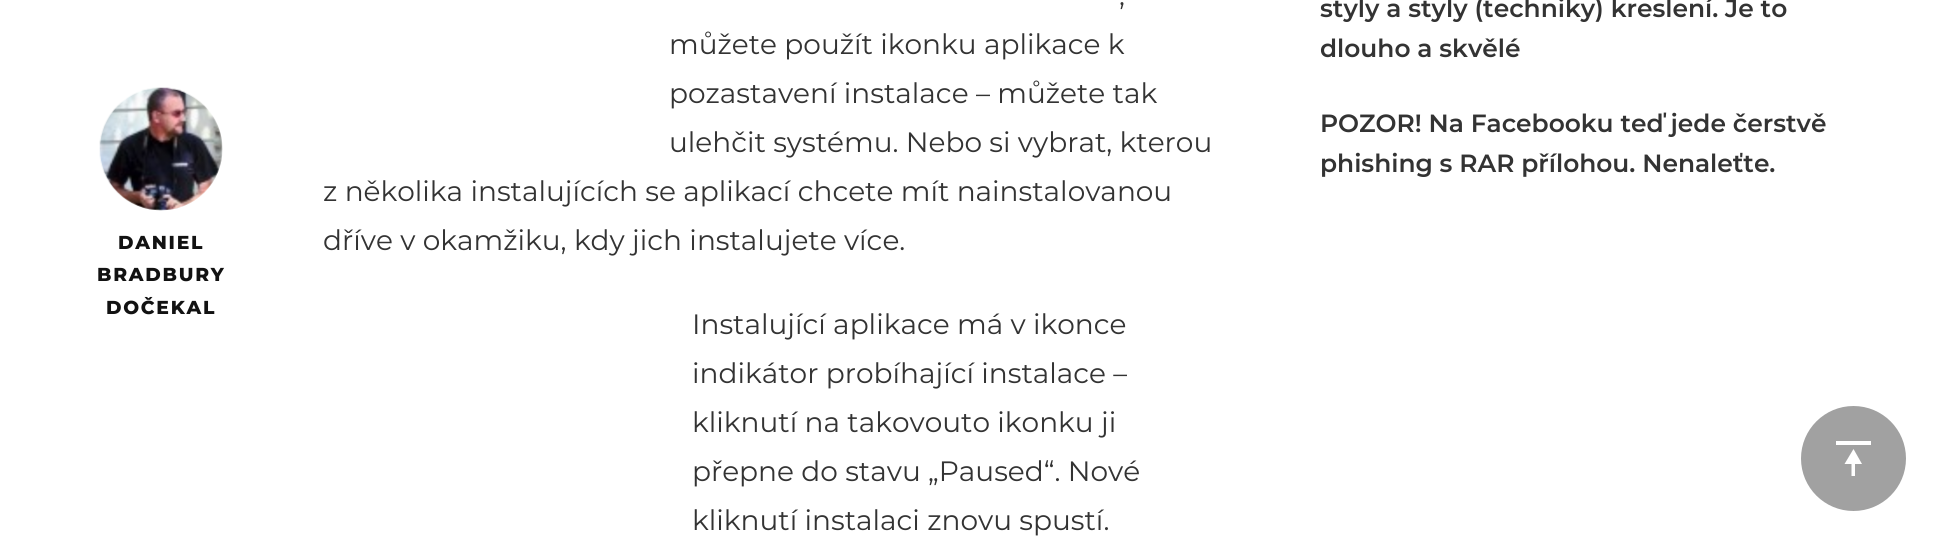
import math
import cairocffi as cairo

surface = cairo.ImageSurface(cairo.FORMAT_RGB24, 1940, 545)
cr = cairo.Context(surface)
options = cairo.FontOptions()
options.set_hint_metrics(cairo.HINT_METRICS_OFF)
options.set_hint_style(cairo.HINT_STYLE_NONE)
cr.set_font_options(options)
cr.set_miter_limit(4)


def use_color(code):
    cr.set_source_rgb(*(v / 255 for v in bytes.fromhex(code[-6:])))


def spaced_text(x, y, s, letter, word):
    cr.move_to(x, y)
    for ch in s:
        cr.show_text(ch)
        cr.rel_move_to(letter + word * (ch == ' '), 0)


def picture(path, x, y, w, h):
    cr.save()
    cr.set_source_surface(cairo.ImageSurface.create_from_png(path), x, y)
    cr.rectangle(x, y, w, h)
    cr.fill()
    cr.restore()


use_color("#ffffff")
cr.paint()
picture("img1.png", 99, 87, 124, 124)
cr.select_font_face("Montserrat ExtraBold")
cr.set_font_size(18.75)
use_color("#121212")
spaced_text(118, 249, "DANIEL", 1.75, 0)
spaced_text(97, 281, "BRADBURY", 1.75, 0)
spaced_text(106, 314, "DOČEKAL", 1.75, 0)
cr.select_font_face("Montserrat")
cr.set_font_size(28)
use_color("#333333")
cr.move_to(1119, 5)
cr.show_text(",")
cr.move_to(669, 54)
cr.show_text("můžete použít ikonku aplikace k")
cr.move_to(669, 103)
cr.show_text("pozastavení instalace – můžete tak")
cr.move_to(669, 152)
cr.show_text("ulehčit systému. Nebo si vybrat, kterou")
cr.move_to(323, 201)
cr.show_text("z několika instalujících se aplikací chcete mít nainstalovanou")
cr.move_to(323, 250)
cr.show_text("dříve v okamžiku, kdy jich instalujete více.")
cr.move_to(692, 334)
cr.show_text("Instalující aplikace má v ikonce")
cr.move_to(692, 383)
cr.show_text("indikátor probíhající instalace –")
cr.move_to(692, 432)
cr.show_text("kliknutí na takovouto ikonku ji")
cr.move_to(692, 481)
cr.show_text("přepne do stavu „Paused“. Nové")
cr.move_to(692, 530)
cr.show_text("kliknutí instalaci znovu spustí.")
cr.select_font_face("Montserrat SemiBold")
cr.set_font_size(24.9)
cr.move_to(1320, 17)
cr.show_text("styly a styly (techniky) kreslení. Je to")
cr.move_to(1320, 57)
cr.show_text("dlouho a skvělé")
cr.move_to(1320, 132)
cr.show_text("POZOR! Na Facebooku teď jede čerstvě")
cr.move_to(1320, 172)
cr.show_text("phishing s RAR přílohou. Nenaleťte.")
use_color("#a1a1a1")
cr.new_path()
cr.arc(1853.5, 458.5, 52.5, 0, 2 * math.pi)
cr.fill()
use_color("#ffffff")
cr.rectangle(1836, 441, 35, 4)
cr.fill()
cr.new_path()
cr.move_to(1862, 464)
cr.line_to(1853.5, 449)
cr.line_to(1844.5, 464)
cr.line_to(1851.5, 464)
cr.line_to(1851.5, 476)
cr.line_to(1855, 476)
cr.line_to(1855, 464)
cr.close_path()
cr.fill()
surface.write_to_png("result.png")
